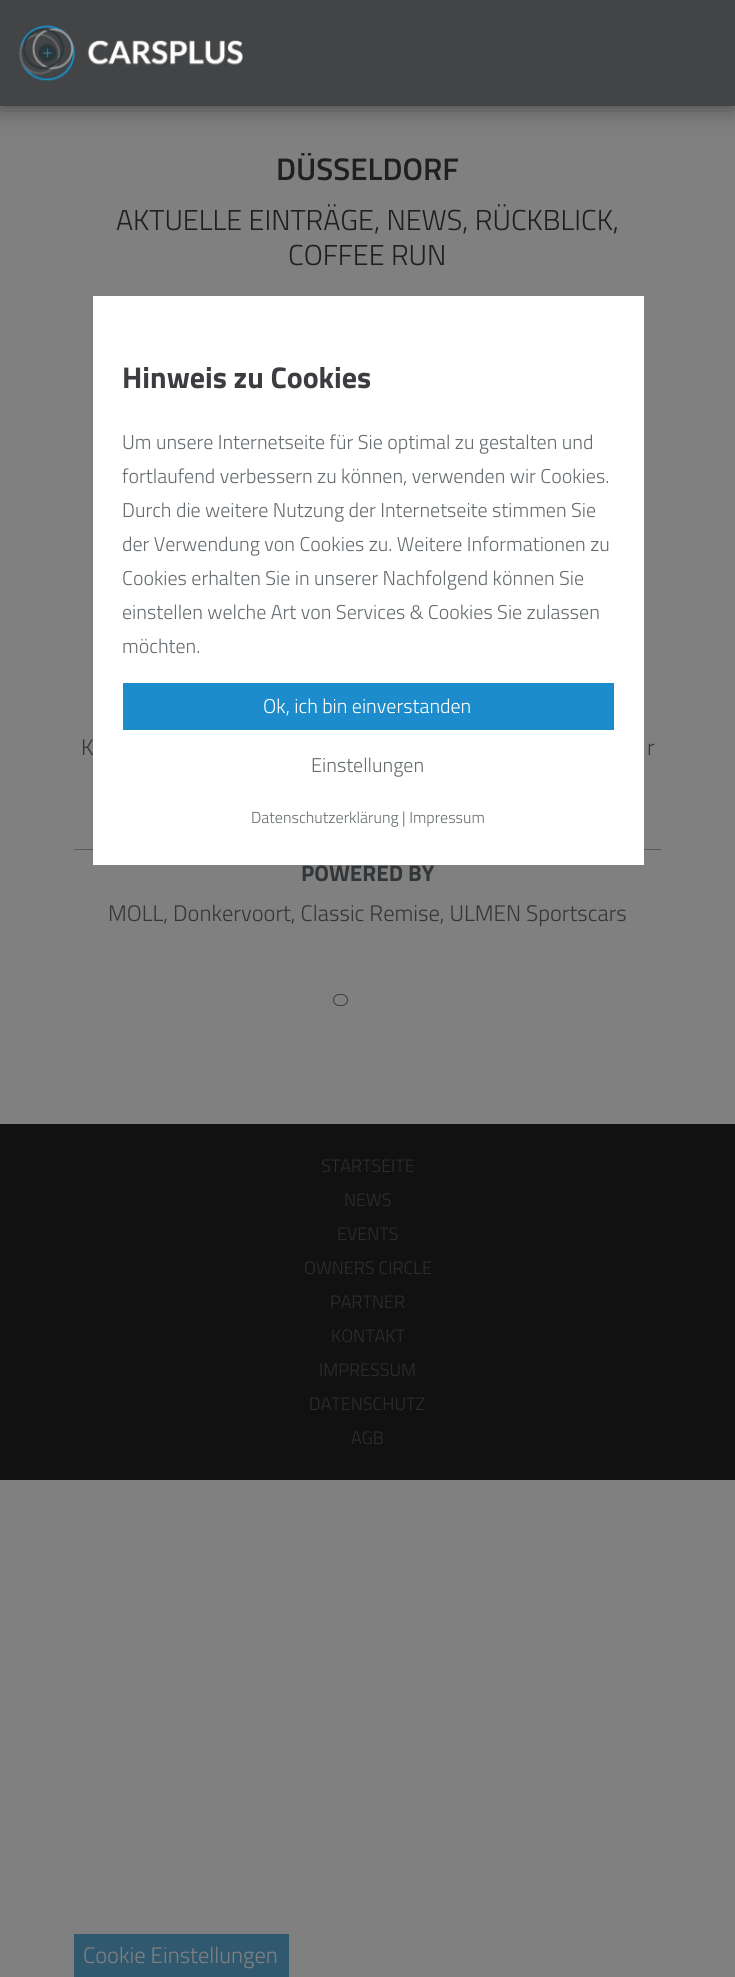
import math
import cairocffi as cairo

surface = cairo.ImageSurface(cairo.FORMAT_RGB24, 735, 1977)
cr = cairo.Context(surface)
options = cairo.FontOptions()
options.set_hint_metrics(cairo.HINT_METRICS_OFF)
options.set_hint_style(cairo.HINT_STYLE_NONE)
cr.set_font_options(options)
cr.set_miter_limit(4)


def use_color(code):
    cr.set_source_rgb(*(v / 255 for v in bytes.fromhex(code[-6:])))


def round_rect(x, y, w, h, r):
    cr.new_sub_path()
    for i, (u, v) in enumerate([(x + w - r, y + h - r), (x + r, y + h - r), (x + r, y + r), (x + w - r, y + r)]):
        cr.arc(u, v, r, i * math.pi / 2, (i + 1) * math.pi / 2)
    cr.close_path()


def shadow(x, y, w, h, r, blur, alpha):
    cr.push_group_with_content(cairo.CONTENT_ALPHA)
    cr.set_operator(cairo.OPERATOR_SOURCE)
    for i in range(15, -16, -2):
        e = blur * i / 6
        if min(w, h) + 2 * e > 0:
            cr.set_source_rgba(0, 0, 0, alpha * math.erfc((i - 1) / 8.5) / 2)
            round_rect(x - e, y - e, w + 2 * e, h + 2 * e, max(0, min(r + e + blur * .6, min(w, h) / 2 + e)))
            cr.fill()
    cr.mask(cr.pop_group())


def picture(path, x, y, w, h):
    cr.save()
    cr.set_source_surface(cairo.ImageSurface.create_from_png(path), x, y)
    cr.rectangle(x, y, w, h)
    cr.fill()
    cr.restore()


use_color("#808080")
cr.paint()
use_color("#000000")
shadow(0, 0, 735, 106, 0, 12.5, 0.5)
use_color("#424446")
cr.rectangle(0, 0, 735, 106)
cr.fill()
picture("img1.png", 18, 25, 225, 56)
cr.save()
cr.rectangle(74, 153, 587, 860)
cr.clip()
cr.select_font_face("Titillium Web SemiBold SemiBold")
cr.set_font_size(31.25)
use_color("#1e1f20")
cr.move_to(276, 180)
cr.show_text("DÜSSELDORF")
cr.restore()
cr.select_font_face("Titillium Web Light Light")
cr.set_font_size(28.75)
use_color("#1e1f20")
cr.move_to(116, 230)
cr.show_text("AKTUELLE EINTRÄGE, NEWS, RÜCKBLICK,")
cr.move_to(288, 265)
cr.show_text("COFFEE RUN")
cr.set_font_size(22.5)
use_color("#333638")
cr.move_to(81, 755)
cr.show_text("K")
cr.move_to(647, 755)
cr.show_text("r")
use_color("#5a5a5a")
cr.rectangle(74, 849, 587, 1)
cr.fill()
cr.select_font_face("Titillium Web", cairo.FONT_SLANT_NORMAL, cairo.FONT_WEIGHT_BOLD)
use_color("#333638")
cr.move_to(301, 881)
cr.show_text("POWERED BY")
cr.select_font_face("Titillium Web Light Light")
cr.move_to(108, 921)
cr.show_text("MOLL, Donkervoort, Classic Remise, ULMEN Sportscars")
round_rect(333.5, 994.5, 14, 11, 5.5)
use_color("#3b3c3d")
cr.set_line_width(1)
cr.stroke()
use_color("#ffffff")
cr.rectangle(93, 296, 551, 569)
cr.fill()
cr.select_font_face("Titillium Web", cairo.FONT_SLANT_NORMAL, cairo.FONT_WEIGHT_BOLD)
cr.set_font_size(30)
use_color("#3c3d41")
cr.move_to(122, 388)
cr.show_text("Hinweis zu Cookies")
cr.select_font_face("Titillium Web Light Light")
cr.set_font_size(20)
use_color("#656b6f")
cr.move_to(122, 449)
cr.show_text("Um unsere Internetseite für Sie optimal zu gestalten und")
cr.move_to(122, 483)
cr.show_text("fortlaufend verbessern zu können, verwenden wir Cookies.")
cr.move_to(122, 517)
cr.show_text("Durch die weitere Nutzung der Internetseite stimmen Sie")
cr.move_to(122, 551)
cr.show_text("der Verwendung von Cookies zu. Weitere Informationen zu")
cr.move_to(122, 585)
cr.show_text("Cookies erhalten Sie in unserer Nachfolgend können Sie")
cr.move_to(122, 619)
cr.show_text("einstellen welche Art von Services & Cookies Sie zulassen")
cr.move_to(122, 653)
cr.show_text("möchten.")
use_color("#1c8ccc")
cr.rectangle(123, 683, 491, 47)
cr.fill()
use_color("#ffffff")
cr.move_to(263, 713)
cr.show_text("Ok, ich bin einverstanden")
use_color("#656b6f")
cr.move_to(311, 772)
cr.show_text("Einstellungen")
cr.set_font_size(16)
cr.move_to(251, 823)
cr.show_text("Datenschutzerklärung | Impressum")
use_color("#111111")
cr.rectangle(0, 1124, 735, 356)
cr.fill()
cr.set_font_size(18)
use_color("#2d2d2d")
cr.move_to(321, 1172)
cr.show_text("STARTSEITE")
cr.move_to(344, 1206)
cr.show_text("NEWS")
cr.move_to(337, 1240)
cr.show_text("EVENTS")
cr.move_to(304, 1274)
cr.show_text("OWNERS CIRCLE")
cr.move_to(330, 1308)
cr.show_text("PARTNER")
cr.move_to(331, 1342)
cr.show_text("KONTAKT")
cr.move_to(319, 1376)
cr.show_text("IMPRESSUM")
cr.move_to(309, 1410)
cr.show_text("DATENSCHUTZ")
cr.move_to(351, 1444)
cr.show_text("AGB")
use_color("#30586e")
cr.rectangle(74, 1934, 215, 43)
cr.fill()
cr.set_font_size(22.5)
use_color("#808080")
cr.move_to(83, 1963)
cr.show_text("Cookie Einstellungen")
surface.write_to_png("result.png")
